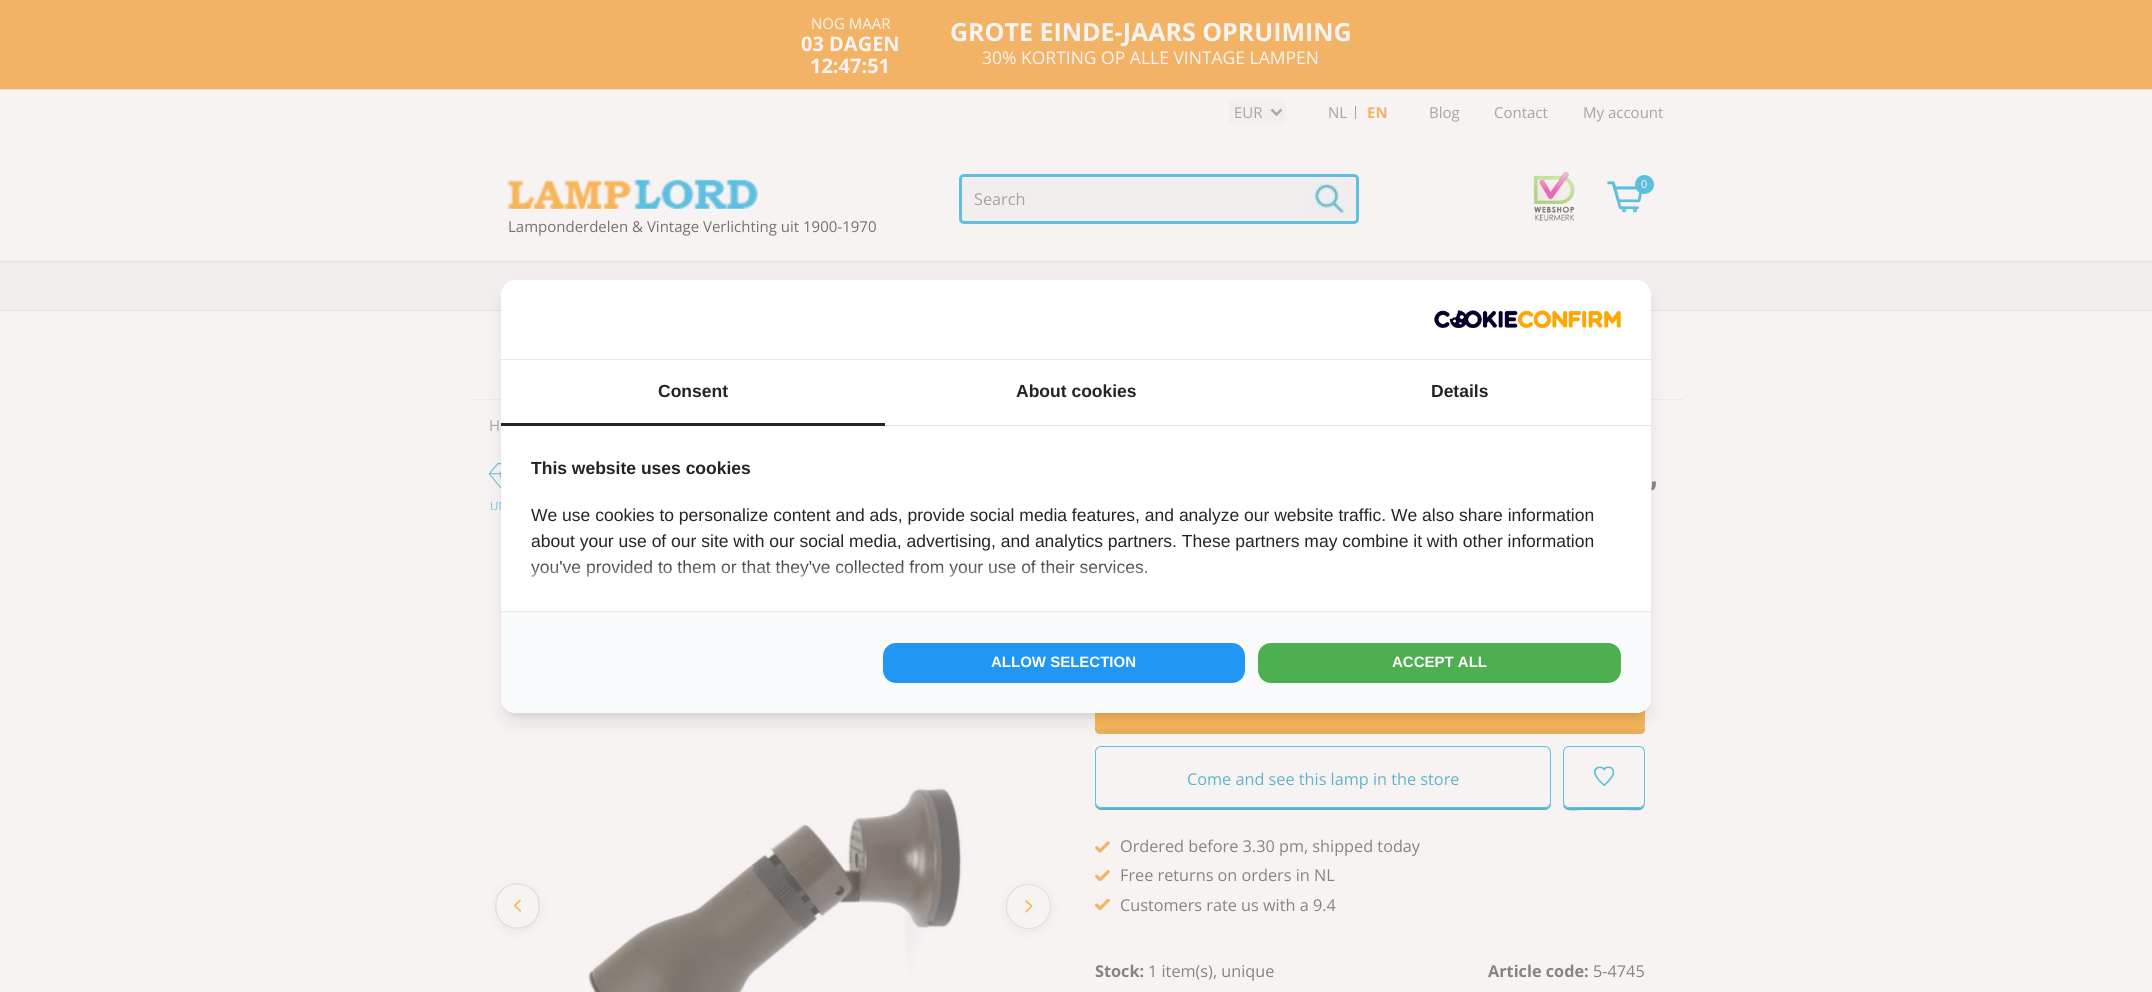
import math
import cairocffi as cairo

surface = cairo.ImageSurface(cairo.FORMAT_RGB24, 2152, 992)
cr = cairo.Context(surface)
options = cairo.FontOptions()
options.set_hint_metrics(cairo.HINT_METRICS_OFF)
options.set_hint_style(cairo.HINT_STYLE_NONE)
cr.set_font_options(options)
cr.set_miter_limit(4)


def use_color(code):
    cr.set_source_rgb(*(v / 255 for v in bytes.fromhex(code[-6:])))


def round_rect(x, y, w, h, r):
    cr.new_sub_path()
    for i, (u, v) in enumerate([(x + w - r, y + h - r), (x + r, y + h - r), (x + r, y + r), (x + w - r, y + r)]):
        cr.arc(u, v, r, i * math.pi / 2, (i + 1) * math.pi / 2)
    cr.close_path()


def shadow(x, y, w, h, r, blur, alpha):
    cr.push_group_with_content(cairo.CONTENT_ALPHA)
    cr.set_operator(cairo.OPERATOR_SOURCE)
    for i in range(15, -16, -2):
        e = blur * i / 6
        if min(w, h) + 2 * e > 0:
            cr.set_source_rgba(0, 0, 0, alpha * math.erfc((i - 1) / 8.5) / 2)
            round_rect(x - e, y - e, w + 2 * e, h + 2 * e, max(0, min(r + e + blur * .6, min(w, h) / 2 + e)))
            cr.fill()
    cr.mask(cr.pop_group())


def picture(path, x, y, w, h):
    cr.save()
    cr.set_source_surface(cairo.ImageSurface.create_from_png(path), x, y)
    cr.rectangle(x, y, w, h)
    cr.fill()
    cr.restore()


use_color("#f7f3f3")
cr.paint()
use_color("#f2b366")
cr.rectangle(0, 0, 2152, 89)
cr.fill()
use_color("#e5e1e1")
cr.rectangle(0, 89, 2152, 1)
cr.fill()
cr.select_font_face("Open Sans")
cr.set_font_size(15)
use_color("#f7f3f3")
cr.move_to(811, 29)
cr.show_text("NOG MAAR")
cr.select_font_face("Open Sans", cairo.FONT_SLANT_NORMAL, cairo.FONT_WEIGHT_BOLD)
cr.set_font_size(20)
cr.move_to(801, 51)
cr.show_text("03 DAGEN")
cr.move_to(810, 73)
cr.show_text("12:47:51")
cr.set_font_size(25)
cr.move_to(950, 41)
cr.show_text("GROTE EINDE-JAARS OPRUIMING")
cr.select_font_face("Open Sans")
cr.set_font_size(17.5)
cr.move_to(982, 64)
cr.show_text("30% KORTING OP ALLE VINTAGE LAMPEN")
use_color("#f2efef")
cr.rectangle(1229, 100, 57, 24)
cr.fill()
cr.new_path()
cr.move_to(1271.5, 109.5)
cr.line_to(1276.5, 114.5)
cr.line_to(1281.5, 109.5)
use_color("#aba7a7")
cr.set_line_width(2.5)
cr.stroke()
cr.set_font_size(15)
use_color("#a7a3a3")
cr.move_to(1234, 118)
cr.show_text("EUR")
cr.move_to(1328, 118)
cr.show_text("NL")
cr.rectangle(1355, 106, 1, 13)
cr.fill()
cr.select_font_face("Open Sans", cairo.FONT_SLANT_NORMAL, cairo.FONT_WEIGHT_BOLD)
use_color("#f2b366")
cr.move_to(1367, 118)
cr.show_text("EN")
cr.select_font_face("Open Sans")
use_color("#a7a3a3")
cr.move_to(1429, 118)
cr.show_text("Blog")
cr.move_to(1494, 118)
cr.show_text("Contact")
cr.move_to(1583, 118)
cr.show_text("My account")
picture("img1.png", 1533, 171, 42, 50)
picture("img2.png", 1607, 181, 35, 32)
use_color("#5ebfdf")
cr.arc(1644.5, 184.5, 9.5, 0, 2 * math.pi)
cr.fill()
cr.set_font_size(11)
use_color("#f7f3f3")
cr.move_to(1641, 188)
cr.show_text("0")
use_color("#f2eeee")
round_rect(960.5, 175.5, 397, 47, 3.5)
cr.fill_preserve()
use_color("#5ebfdf")
cr.set_line_width(3)
cr.stroke()
cr.set_font_size(16.25)
use_color("#a7a3a3")
cr.move_to(974, 205)
cr.show_text("Search")
picture("img3.png", 1307, 182, 41, 34)
picture("img4.png", 507, 175, 251, 34)
cr.set_font_size(15)
use_color("#747171")
cr.move_to(508, 232)
cr.show_text("Lamponderdelen & Vintage Verlichting uit 1900-1970")
use_color("#f2eeee")
cr.rectangle(0, 262, 2152, 48)
cr.fill()
use_color("#e5e1e1")
cr.rectangle(0, 261, 2152, 1)
cr.fill()
cr.rectangle(0, 310, 2152, 1)
cr.fill()
use_color("#ede9e9")
cr.rectangle(470, 399, 1213, 1)
cr.fill()
picture("img6.png", 489, 463, 12, 47)
use_color("#ecae5a")
cr.new_path()
cr.move_to(1095, 724)
cr.line_to(1095, 729)
cr.curve_to(1095, 732, 1097, 734, 1100, 734)
cr.line_to(1640, 734)
cr.curve_to(1643, 734, 1645, 732, 1645, 729)
cr.line_to(1645, 724)
cr.curve_to(1645, 727, 1643, 729, 1640, 729)
cr.line_to(1100, 729)
cr.curve_to(1097, 729, 1095, 727, 1095, 724)
cr.close_path()
cr.fill()
use_color("#f7b55a")
round_rect(1095, 669, 550, 60, 5)
cr.fill()
use_color("#000000")
shadow(506, 290, 1140, 423, 10, 4, 0.1)
use_color("#5fb2ce")
cr.new_path()
cr.move_to(1095, 801)
cr.line_to(1095, 804)
cr.curve_to(1095, 807, 1098, 810, 1101, 810)
cr.line_to(1545, 810)
cr.curve_to(1548, 810, 1551, 807, 1551, 804)
cr.line_to(1551, 803)
cr.curve_to(1550, 806, 1548, 808, 1545, 808)
cr.line_to(1101, 808)
cr.curve_to(1098, 808, 1095, 805, 1095, 801)
cr.close_path()
cr.fill()
round_rect(1095.5, 746.5, 455, 61, 5.5)
use_color("#5ebfdf")
cr.set_line_width(1)
cr.stroke()
use_color("#5fb2ce")
cr.new_path()
cr.move_to(1563, 804)
cr.curve_to(1563, 813, 1576, 810, 1581, 810)
cr.line_to(1627, 810)
cr.curve_to(1637, 810, 1645, 813, 1645, 801)
cr.curve_to(1645, 805, 1642, 808, 1639, 808)
cr.line_to(1569, 808)
cr.curve_to(1566, 808, 1564, 806, 1563, 804)
cr.close_path()
cr.fill()
picture("img10.png", 1594, 766, 21, 20)
round_rect(1563.5, 746.5, 81, 61, 5.5)
use_color("#5ebfdf")
cr.stroke()
use_color("#000000")
shadow(505, 296, 1143, 425, 11, 9.5, 0.1)
use_color("#ffffff")
round_rect(501, 280, 1150, 433, 15)
cr.fill()
use_color("#e5e7eb")
cr.rectangle(501, 359, 1150, 1)
cr.fill()
picture("img5.png", 1434, 310, 187, 18)
cr.rectangle(885, 425, 766, 1)
cr.fill()
use_color("#242424")
cr.rectangle(501, 423, 384, 3)
cr.fill()
cr.select_font_face("Liberation Sans", cairo.FONT_SLANT_NORMAL, cairo.FONT_WEIGHT_BOLD)
cr.set_font_size(17.5)
cr.move_to(658, 397)
cr.show_text("Consent")
cr.move_to(1016, 397)
cr.show_text("About cookies")
cr.move_to(1431, 397)
cr.show_text("Details")
cr.move_to(531, 474)
cr.show_text("This website uses cookies")
cr.select_font_face("Liberation Sans")
cr.move_to(531, 521)
cr.show_text("We use cookies to personalize content and ads, provide social media features, and analyze our website traffic. We also share information")
cr.move_to(531, 547)
cr.show_text("about your use of our site with our social media, advertising, and analytics partners. These partners may combine it with other information")
cr.move_to(531, 573)
cr.show_text("you've provided to them or that they've collected from your use of their services.")
cr.save()
round_rect(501, 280, 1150, 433, 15)
cr.clip()
use_color("#ffffff")
shadow(491, 576, 1170, 122, 0, 12.5, 1)
cr.restore()
use_color("#f9fafb")
cr.new_path()
cr.move_to(501, 611)
cr.line_to(1651, 611)
cr.line_to(1651, 698)
cr.curve_to(1651, 706.5, 1644.5, 713, 1636, 713)
cr.line_to(516, 713)
cr.curve_to(507.5, 713, 501, 706.5, 501, 698)
cr.close_path()
cr.fill()
use_color("#e5e7eb")
cr.rectangle(501, 611, 1150, 1)
cr.fill()
use_color("#2196f3")
round_rect(883, 643, 362, 40, 13)
cr.fill()
cr.select_font_face("Liberation Sans", cairo.FONT_SLANT_NORMAL, cairo.FONT_WEIGHT_BOLD)
cr.set_font_size(15)
use_color("#ffffff")
cr.move_to(991, 667)
cr.show_text("ALLOW SELECTION")
use_color("#4caf50")
round_rect(1258, 643, 363, 40, 13)
cr.fill()
use_color("#ffffff")
cr.move_to(1392, 667)
cr.show_text("ACCEPT ALL")
cr.select_font_face("Open Sans")
use_color("#a7a3a3")
cr.move_to(489, 431)
cr.show_text("H")
use_color("#c4b0b0")
shadow(495, 886, 45, 45, 22.5, 5, 0.2)
use_color("#f7f3f3")
cr.new_path()
cr.move_to(518, 928)
cr.curve_to(488, 928, 488, 883, 518, 883)
cr.curve_to(547, 883, 547, 928, 518, 928)
cr.close_path()
cr.fill()
picture("img7.png", 514, 900, 7, 12)
cr.new_path()
cr.move_to(517.5, 928)
cr.curve_to(488.5, 928, 488.5, 884, 517.5, 884)
cr.curve_to(546.5, 884, 546.5, 928, 517.5, 928)
cr.close_path()
use_color("#e0dcdc")
cr.set_line_width(1.2)
cr.stroke()
picture("img8.png", 588, 784, 376, 208)
use_color("#c4b0b0")
shadow(1006, 886, 45, 45, 22.5, 5, 0.2)
use_color("#f7f3f3")
cr.arc(1028.5, 906.5, 22.5, 0, 2 * math.pi)
cr.fill()
picture("img9.png", 1025, 900, 8, 13)
cr.arc(1028.5, 906.5, 22, 0, 2 * math.pi)
use_color("#e0dcdc")
cr.set_line_width(1)
cr.stroke()
cr.select_font_face("Roboto Slab", cairo.FONT_SLANT_NORMAL, cairo.FONT_WEIGHT_BOLD)
cr.set_font_size(30)
use_color("#878383")
cr.move_to(1650, 485)
cr.show_text(",")
cr.select_font_face("Open Sans")
cr.set_font_size(16.25)
use_color("#5fb2ce")
cr.move_to(1187, 785)
cr.show_text("Come and see this lamp in the store")
picture("img11.png", 1095, 841, 15, 12)
use_color("#878383")
cr.move_to(1120, 852)
cr.show_text("Ordered before 3.30 pm, shipped today")
picture("img12.png", 1095, 870, 15, 11)
cr.move_to(1120, 881)
cr.show_text("Free returns on orders in NL")
picture("img13.png", 1095, 899, 15, 11)
cr.move_to(1120, 911)
cr.show_text("Customers rate us with a 9.4")
cr.select_font_face("Open Sans", cairo.FONT_SLANT_NORMAL, cairo.FONT_WEIGHT_BOLD)
cr.move_to(1095, 977)
cr.show_text("Stock:")
cr.select_font_face("Open Sans")
cr.move_to(1148, 977)
cr.show_text("1 item(s), unique")
cr.select_font_face("Open Sans", cairo.FONT_SLANT_NORMAL, cairo.FONT_WEIGHT_BOLD)
cr.move_to(1488, 977)
cr.show_text("Article code:")
cr.select_font_face("Open Sans")
cr.move_to(1593, 977)
cr.show_text("5-4745")
surface.write_to_png("result.png")
